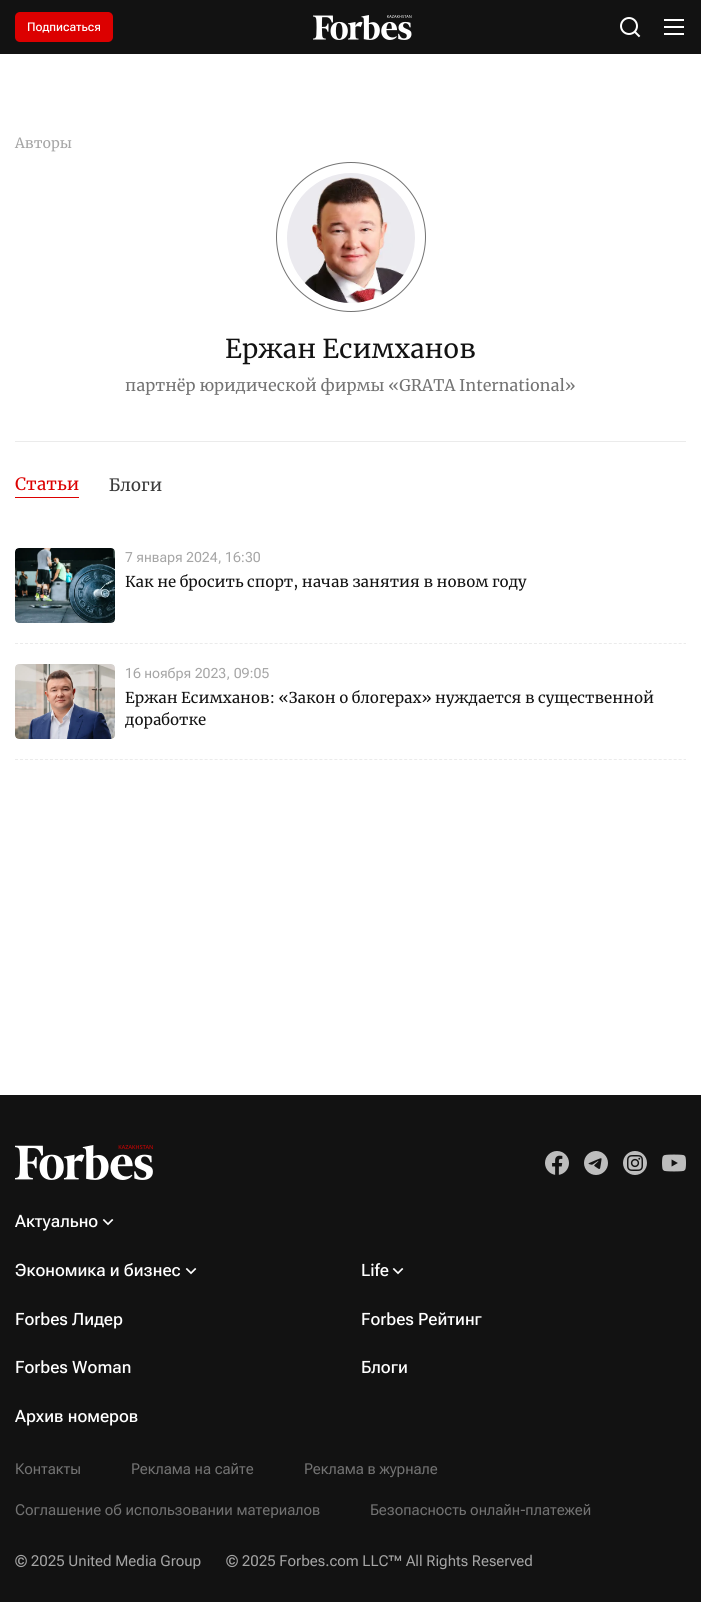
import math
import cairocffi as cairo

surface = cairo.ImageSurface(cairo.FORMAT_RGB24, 701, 1602)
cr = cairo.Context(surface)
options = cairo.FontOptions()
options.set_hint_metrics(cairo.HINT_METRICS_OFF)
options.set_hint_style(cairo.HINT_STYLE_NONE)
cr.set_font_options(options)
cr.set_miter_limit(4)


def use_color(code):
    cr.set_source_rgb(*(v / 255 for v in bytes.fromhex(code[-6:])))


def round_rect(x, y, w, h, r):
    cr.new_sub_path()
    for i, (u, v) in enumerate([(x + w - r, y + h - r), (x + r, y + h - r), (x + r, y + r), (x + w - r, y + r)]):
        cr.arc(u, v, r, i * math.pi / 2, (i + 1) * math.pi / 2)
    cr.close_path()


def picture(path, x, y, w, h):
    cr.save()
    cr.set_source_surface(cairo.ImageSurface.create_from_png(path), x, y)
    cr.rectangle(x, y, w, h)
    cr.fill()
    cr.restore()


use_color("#ffffff")
cr.paint()
use_color("#121212")
cr.rectangle(0, 0, 701, 54)
cr.fill()
use_color("#dc0000")
round_rect(15, 12, 98, 30, 5)
cr.fill()
cr.select_font_face("Roboto Flex Medium")
cr.set_font_size(12)
use_color("#ffffff")
cr.move_to(27, 31)
cr.show_text("Подписаться")
picture("img1.png", 313, 15, 99, 25)
picture("img2.png", 620, 17, 21, 21)
picture("img3.png", 664, 19, 20, 16)
cr.select_font_face("Merriweather")
cr.set_font_size(14)
use_color("#a5a5a5")
cr.move_to(15, 148)
cr.show_text("Авторы")
use_color("#ebebeb")
cr.rectangle(15, 441, 671, 1)
cr.fill()
cr.arc(351, 237, 74.5, 0, 2 * math.pi)
use_color("#737373")
cr.set_line_width(1)
cr.stroke()
picture("img4.png", 287, 173, 128, 130)
cr.set_font_size(26)
use_color("#121212")
cr.move_to(225, 358)
cr.show_text("Ержан Есимханов")
cr.set_font_size(16)
use_color("#737373")
cr.move_to(125, 391)
cr.show_text("партнёр юридической фирмы «GRATA International»")
use_color("#dc0000")
cr.rectangle(15, 497, 64, 1)
cr.fill()
cr.set_font_size(17)
cr.move_to(15, 490)
cr.show_text("Статьи")
use_color("#3b3b3b")
cr.move_to(109, 491)
cr.show_text("Блоги")
cr.new_path()
cr.move_to(15, 643.5)
cr.line_to(686, 643.5)
use_color("#ebebeb")
cr.set_dash([3, 1.99])
cr.stroke()
picture("img5.png", 15, 548, 100, 75)
cr.select_font_face("Roboto Flex")
cr.set_font_size(14)
use_color("#a5a5a5")
cr.move_to(125, 562)
cr.show_text("7 января 2024, 16:30")
cr.select_font_face("Merriweather")
cr.set_font_size(15)
use_color("#121212")
cr.move_to(125, 587)
cr.show_text("Как не бросить спорт, начав занятия в новом году")
cr.new_path()
cr.move_to(15, 759.5)
cr.line_to(686, 759.5)
use_color("#ebebeb")
cr.stroke()
picture("img6.png", 15, 664, 100, 75)
cr.select_font_face("Roboto Flex")
cr.set_font_size(14)
use_color("#a5a5a5")
cr.move_to(125, 678)
cr.show_text("16 ноября 2023, 09:05")
cr.select_font_face("Merriweather")
cr.set_font_size(15)
use_color("#121212")
cr.move_to(125, 703)
cr.show_text("Ержан Есимханов: «Закон о блогерах» нуждается в существенной")
cr.move_to(125, 725)
cr.show_text("доработке")
cr.rectangle(0, 1095, 701, 507)
cr.fill()
picture("img7.png", 15, 1145, 138, 35)
picture("img8.png", 545, 1151, 24, 24)
picture("img9.png", 584, 1151, 24, 24)
picture("img10.png", 623, 1151, 24, 24)
picture("img11.png", 662, 1154, 24, 18)
cr.select_font_face("Roboto Flex Medium")
cr.set_font_size(17)
use_color("#ffffff")
cr.move_to(15, 1227)
cr.show_text("Актуально")
picture("img12.png", 102, 1219, 12, 7)
cr.move_to(15, 1276)
cr.show_text("Экономика и бизнес")
picture("img12.png", 185, 1268, 12, 7)
cr.move_to(361, 1276)
cr.show_text("Life")
picture("img12.png", 392, 1268, 12, 7)
cr.move_to(15, 1325)
cr.show_text("Forbes Лидер")
cr.move_to(361, 1325)
cr.show_text("Forbes Рейтинг")
cr.move_to(15, 1373)
cr.show_text("Forbes Woman")
cr.move_to(361, 1373)
cr.show_text("Блоги")
cr.move_to(15, 1422)
cr.show_text("Архив номеров")
cr.select_font_face("Roboto Flex")
cr.set_font_size(15)
use_color("#737373")
cr.move_to(15, 1474)
cr.show_text("Контакты")
cr.move_to(131, 1474)
cr.show_text("Реклама на сайте")
cr.move_to(304, 1474)
cr.show_text("Реклама в журнале")
cr.move_to(15, 1515)
cr.show_text("Соглашение об использовании материалов")
cr.move_to(370, 1515)
cr.show_text("Безопасность онлайн-платежей")
use_color("#a5a5a5")
cr.move_to(15, 1566)
cr.show_text("© 2025 United Media Group")
cr.move_to(226, 1566)
cr.show_text("© 2025 Forbes.com LLC™ All Rights Reserved")
surface.write_to_png("result.png")
